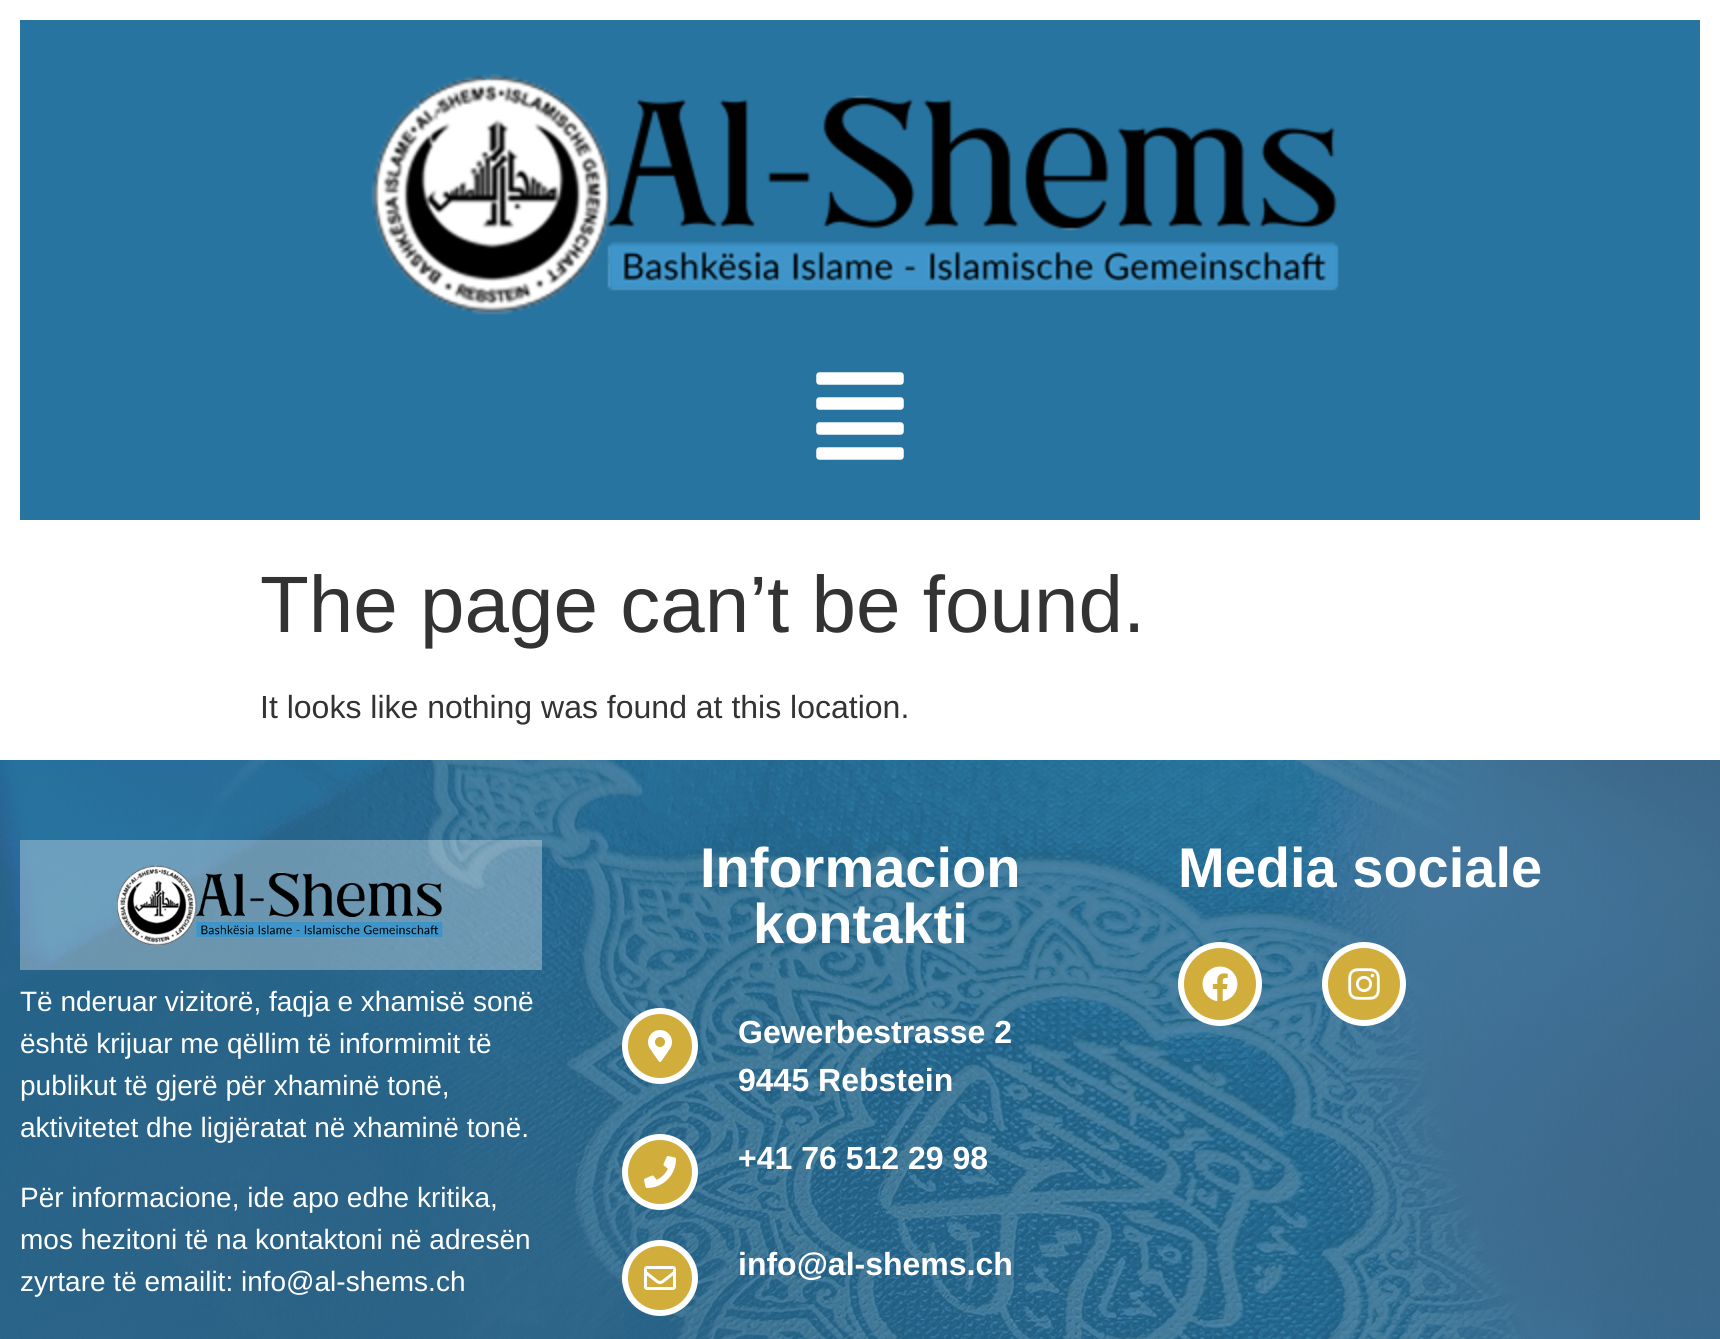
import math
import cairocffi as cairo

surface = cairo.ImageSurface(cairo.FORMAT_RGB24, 1720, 1339)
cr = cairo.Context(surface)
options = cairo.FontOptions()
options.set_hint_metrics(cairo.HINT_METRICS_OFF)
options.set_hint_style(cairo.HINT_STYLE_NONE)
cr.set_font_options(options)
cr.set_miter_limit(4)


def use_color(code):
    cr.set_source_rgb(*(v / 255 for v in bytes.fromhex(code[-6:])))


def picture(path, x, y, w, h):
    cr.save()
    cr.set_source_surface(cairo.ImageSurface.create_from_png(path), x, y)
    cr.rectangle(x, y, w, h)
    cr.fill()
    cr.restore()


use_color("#ffffff")
cr.paint()
use_color("#2874a1")
cr.rectangle(20, 20, 1680, 500)
cr.fill()
picture("img1.png", 371, 73, 968, 242)
picture("img2.png", 816, 372, 88, 88)
cr.select_font_face("Liberation Sans")
cr.set_font_size(80)
use_color("#333333")
cr.move_to(260, 632)
cr.show_text("The page can’t be found.")
cr.set_font_size(32)
cr.move_to(260, 718)
cr.show_text("It looks like nothing was found at this location.")
picture("img3.png", 0, 760, 1720, 579)
cr.select_font_face("Liberation Sans", cairo.FONT_SLANT_NORMAL, cairo.FONT_WEIGHT_BOLD)
cr.set_font_size(56)
use_color("#ffffff")
cr.move_to(700, 887)
cr.show_text("Informacion")
cr.move_to(753, 943)
cr.show_text("kontakti")
use_color("#d1ad3c")
cr.new_path()
cr.arc(660, 1046, 35, 0, 2 * math.pi)
cr.fill_preserve()
use_color("#ffffff")
cr.set_line_width(6)
cr.stroke()
picture("img4.png", 648, 1030, 24, 32)
cr.set_font_size(32)
cr.move_to(738, 1043)
cr.show_text("Gewerbestrasse 2")
cr.move_to(738, 1091)
cr.show_text("9445 Rebstein")
use_color("#d1ad3c")
cr.new_path()
cr.arc(660, 1172, 35, 0, 2 * math.pi)
cr.fill_preserve()
use_color("#ffffff")
cr.stroke()
picture("img5.png", 644, 1156, 32, 32)
cr.move_to(738, 1169)
cr.show_text("+41 76 512 29 98")
use_color("#d1ad3c")
cr.new_path()
cr.arc(660, 1278, 35, 0, 2 * math.pi)
cr.fill_preserve()
use_color("#ffffff")
cr.stroke()
picture("img6.png", 644, 1266, 32, 24)
cr.move_to(738, 1275)
cr.show_text("info@al-shems.ch")
cr.set_font_size(56)
cr.move_to(1178, 887)
cr.show_text("Media sociale")
use_color("#d1ad3c")
cr.new_path()
cr.arc(1220, 984, 39, 0, 2 * math.pi)
cr.fill_preserve()
use_color("#ffffff")
cr.stroke()
picture("img7.png", 1202, 966, 36, 36)
use_color("#d1ad3c")
cr.arc(1364, 984, 39, 0, 2 * math.pi)
cr.fill_preserve()
use_color("#ffffff")
cr.stroke()
picture("img8.png", 1348, 968, 32, 32)
cr.set_source_rgba(1, 1, 1, 0.32)
cr.rectangle(20, 840, 522, 130)
cr.fill()
picture("img9.png", 116, 865, 327, 81)
cr.select_font_face("Liberation Sans")
cr.set_font_size(28)
use_color("#ffffff")
cr.move_to(20, 1011)
cr.show_text("Të nderuar vizitorë, faqja e xhamisë sonë")
cr.move_to(20, 1053)
cr.show_text("është krijuar me qëllim të informimit të")
cr.move_to(20, 1095)
cr.show_text("publikut të gjerë për xhaminë tonë,")
cr.move_to(20, 1137)
cr.show_text("aktivitetet dhe ligjëratat në xhaminë tonë.")
cr.move_to(20, 1207)
cr.show_text("Për informacione, ide apo edhe kritika,")
cr.move_to(20, 1249)
cr.show_text("mos hezitoni të na kontaktoni në adresën")
cr.move_to(20, 1291)
cr.show_text("zyrtare të emailit: info@al-shems.ch")
surface.write_to_png("result.png")
